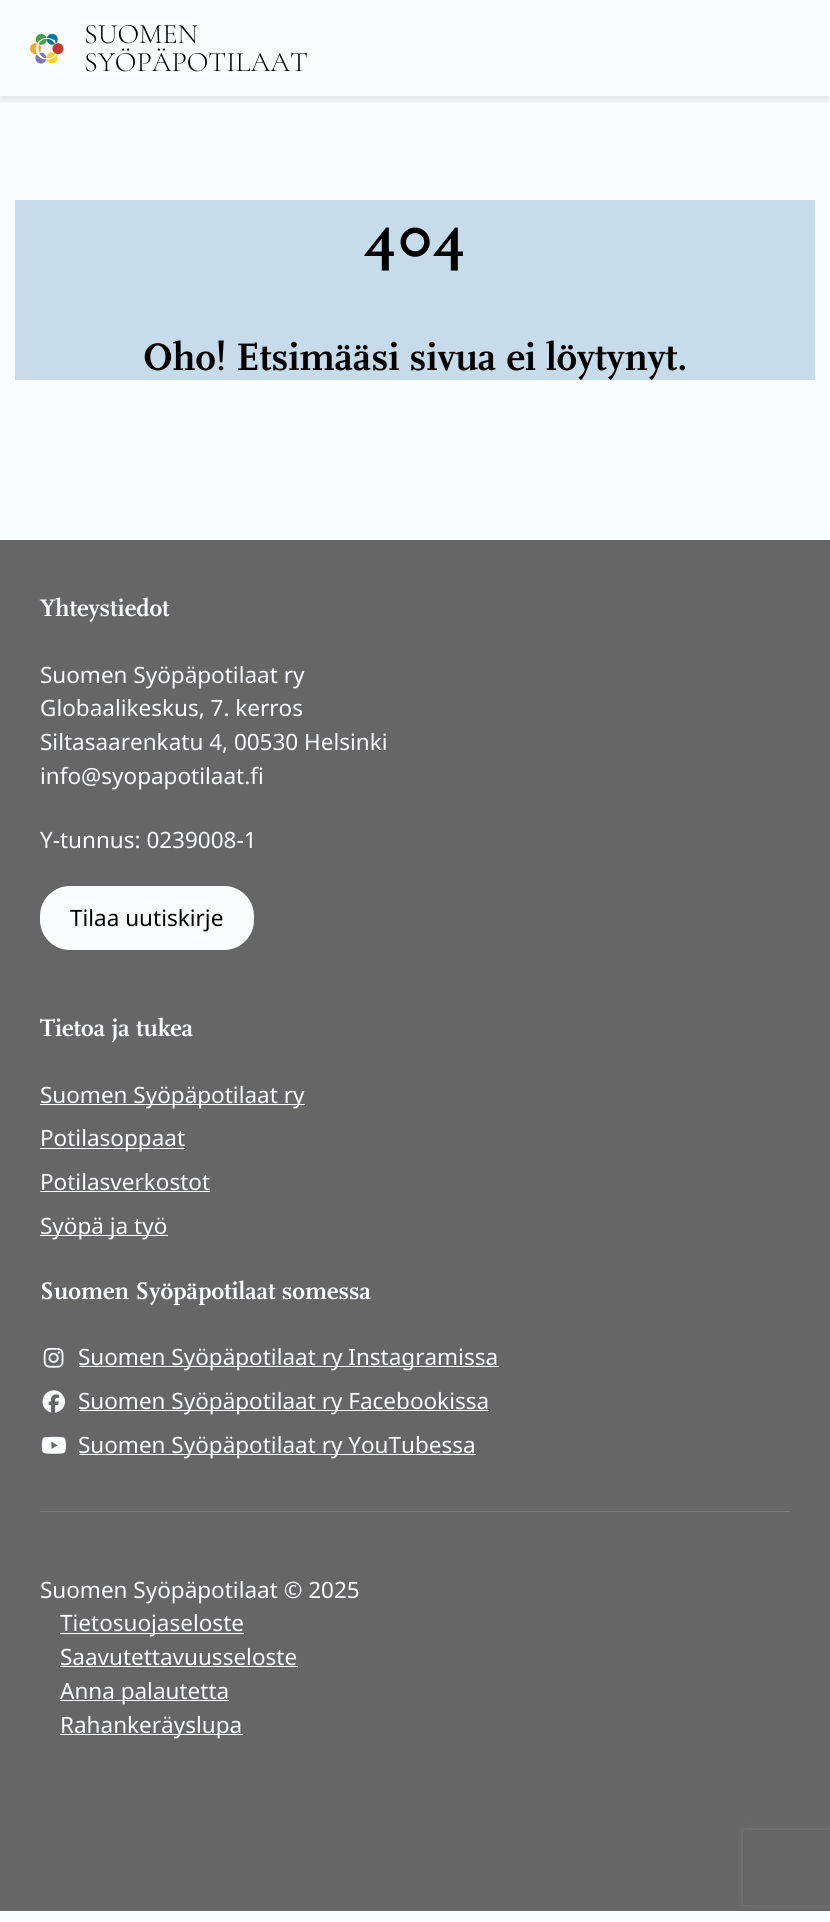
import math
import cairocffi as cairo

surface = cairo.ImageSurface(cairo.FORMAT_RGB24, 830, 1922)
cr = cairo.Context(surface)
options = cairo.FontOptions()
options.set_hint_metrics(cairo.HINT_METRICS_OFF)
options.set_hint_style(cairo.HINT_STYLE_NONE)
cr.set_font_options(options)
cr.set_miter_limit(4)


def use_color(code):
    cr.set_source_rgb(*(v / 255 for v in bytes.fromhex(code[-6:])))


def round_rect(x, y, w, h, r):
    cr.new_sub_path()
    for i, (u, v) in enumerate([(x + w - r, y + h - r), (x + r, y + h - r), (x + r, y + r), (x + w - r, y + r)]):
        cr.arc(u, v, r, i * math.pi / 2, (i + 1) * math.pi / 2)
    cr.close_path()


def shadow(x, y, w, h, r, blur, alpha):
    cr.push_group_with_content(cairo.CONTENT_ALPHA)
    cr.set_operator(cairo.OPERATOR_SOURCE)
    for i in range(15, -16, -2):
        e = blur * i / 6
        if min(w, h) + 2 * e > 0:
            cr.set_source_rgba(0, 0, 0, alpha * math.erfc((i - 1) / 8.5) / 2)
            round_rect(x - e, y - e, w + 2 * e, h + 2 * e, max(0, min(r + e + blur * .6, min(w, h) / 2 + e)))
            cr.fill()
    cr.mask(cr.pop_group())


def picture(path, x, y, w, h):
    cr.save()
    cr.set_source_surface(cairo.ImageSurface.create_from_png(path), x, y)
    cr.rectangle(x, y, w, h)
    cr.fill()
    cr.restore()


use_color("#fafcff")
cr.paint()
cr.save()
cr.rectangle(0, 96, 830, 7)
cr.clip()
use_color("#000000")
shadow(1, 6, 828, 94, 0, 4, 0.1)
cr.restore()
picture("img1.png", 30, 34, 34, 30)
cr.select_font_face("Cormorant Garamond Light")
cr.set_font_size(28.25)
use_color("#000000")
cr.move_to(84, 43)
cr.show_text("SUOMEN")
cr.move_to(84, 71)
cr.show_text("SYÖPÄPOTILAAT")
use_color("#c7dceb")
cr.rectangle(15, 200, 800, 180)
cr.fill()
cr.select_font_face("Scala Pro", cairo.FONT_SLANT_NORMAL, cairo.FONT_WEIGHT_BOLD)
cr.set_font_size(60)
use_color("#000000")
cr.move_to(364, 256)
cr.show_text("404")
cr.set_font_size(40)
cr.move_to(143, 370)
cr.show_text("Oho! Etsimääsi sivua ei löytynyt.")
use_color("#666666")
cr.rectangle(0, 540, 830, 1371)
cr.fill()
cr.set_font_size(25)
use_color("#fafcff")
cr.move_to(40, 616)
cr.show_text("Yhteystiedot")
cr.select_font_face("Noto Sans")
cr.set_font_size(22.5)
cr.move_to(40, 683)
cr.show_text("Suomen Syöpäpotilaat ry")
cr.move_to(40, 716)
cr.show_text("Globaalikeskus, 7. kerros")
cr.move_to(40, 750)
cr.show_text("Siltasaarenkatu 4, 00530 Helsinki")
cr.move_to(40, 784)
cr.show_text("info@syopapotilaat.fi")
cr.move_to(40, 848)
cr.show_text("Y-tunnus: 0239008-1")
round_rect(40, 886, 214, 64, 30)
cr.fill()
use_color("#000000")
cr.move_to(70, 926)
cr.show_text("Tilaa uutiskirje")
cr.select_font_face("Scala Pro", cairo.FONT_SLANT_NORMAL, cairo.FONT_WEIGHT_BOLD)
cr.set_font_size(25)
use_color("#fafcff")
cr.move_to(40, 1036)
cr.show_text("Tietoa ja tukea")
cr.rectangle(40, 1104, 265, 1)
cr.fill()
cr.select_font_face("Noto Sans")
cr.set_font_size(22.5)
cr.move_to(40, 1103)
cr.show_text("Suomen Syöpäpotilaat ry")
cr.rectangle(40, 1148, 145, 1)
cr.fill()
cr.move_to(40, 1146)
cr.show_text("Potilasoppaat")
cr.move_to(40, 1190)
cr.show_text("Potilasverkostot")
cr.rectangle(40, 1191, 170, 1)
cr.fill()
cr.rectangle(40, 1235, 128, 1)
cr.fill()
cr.move_to(40, 1234)
cr.show_text("Syöpä ja työ")
cr.select_font_face("Scala Pro", cairo.FONT_SLANT_NORMAL, cairo.FONT_WEIGHT_BOLD)
cr.set_font_size(25)
cr.move_to(40, 1299)
cr.show_text("Suomen Syöpäpotilaat somessa")
picture("img2.png", 43, 1348, 21, 20)
cr.rectangle(79, 1366, 420, 1)
cr.fill()
cr.select_font_face("Noto Sans")
cr.set_font_size(22.5)
cr.move_to(78, 1365)
cr.show_text("Suomen Syöpäpotilaat ry Instagramissa")
picture("img3.png", 42, 1390, 23, 23)
cr.rectangle(79, 1410, 410, 1)
cr.fill()
cr.move_to(78, 1409)
cr.show_text("Suomen Syöpäpotilaat ry Facebookissa")
picture("img4.png", 41, 1436, 25, 18)
cr.rectangle(79, 1454, 397, 1)
cr.fill()
cr.move_to(78, 1453)
cr.show_text("Suomen Syöpäpotilaat ry YouTubessa")
use_color("#7f7f7f")
cr.rectangle(40, 1511, 750, 1)
cr.fill()
use_color("#fafcff")
cr.move_to(40, 1598)
cr.show_text("Suomen Syöpäpotilaat © 2025")
cr.rectangle(60, 1633, 184, 1)
cr.fill()
cr.move_to(60, 1631)
cr.show_text("Tietosuojaseloste")
cr.move_to(60, 1665)
cr.show_text("Saavutettavuusseloste")
cr.rectangle(60, 1666, 238, 1)
cr.fill()
cr.rectangle(60, 1700, 169, 1)
cr.fill()
cr.move_to(60, 1699)
cr.show_text("Anna palautetta")
cr.rectangle(60, 1734, 183, 1)
cr.fill()
cr.move_to(60, 1733)
cr.show_text("Rahankeräyslupa")
cr.save()
cr.set_fill_rule(cairo.FILL_RULE_EVEN_ODD)
cr.new_path()
cr.move_to(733, 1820)
cr.line_to(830, 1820)
cr.line_to(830, 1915)
cr.line_to(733, 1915)
cr.close_path()
cr.move_to(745.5, 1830)
cr.line_to(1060.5, 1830)
cr.curve_to(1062, 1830, 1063, 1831, 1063, 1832.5)
cr.line_to(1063, 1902.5)
cr.curve_to(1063, 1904, 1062, 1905, 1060.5, 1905)
cr.line_to(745.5, 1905)
cr.curve_to(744, 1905, 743, 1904, 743, 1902.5)
cr.line_to(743, 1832.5)
cr.curve_to(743, 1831, 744, 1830, 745.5, 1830)
cr.close_path()
cr.clip()
use_color("#808080")
shadow(743, 1830, 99, 75, 2.5, 3, 1)
cr.restore()
surface.write_to_png("result.png")
